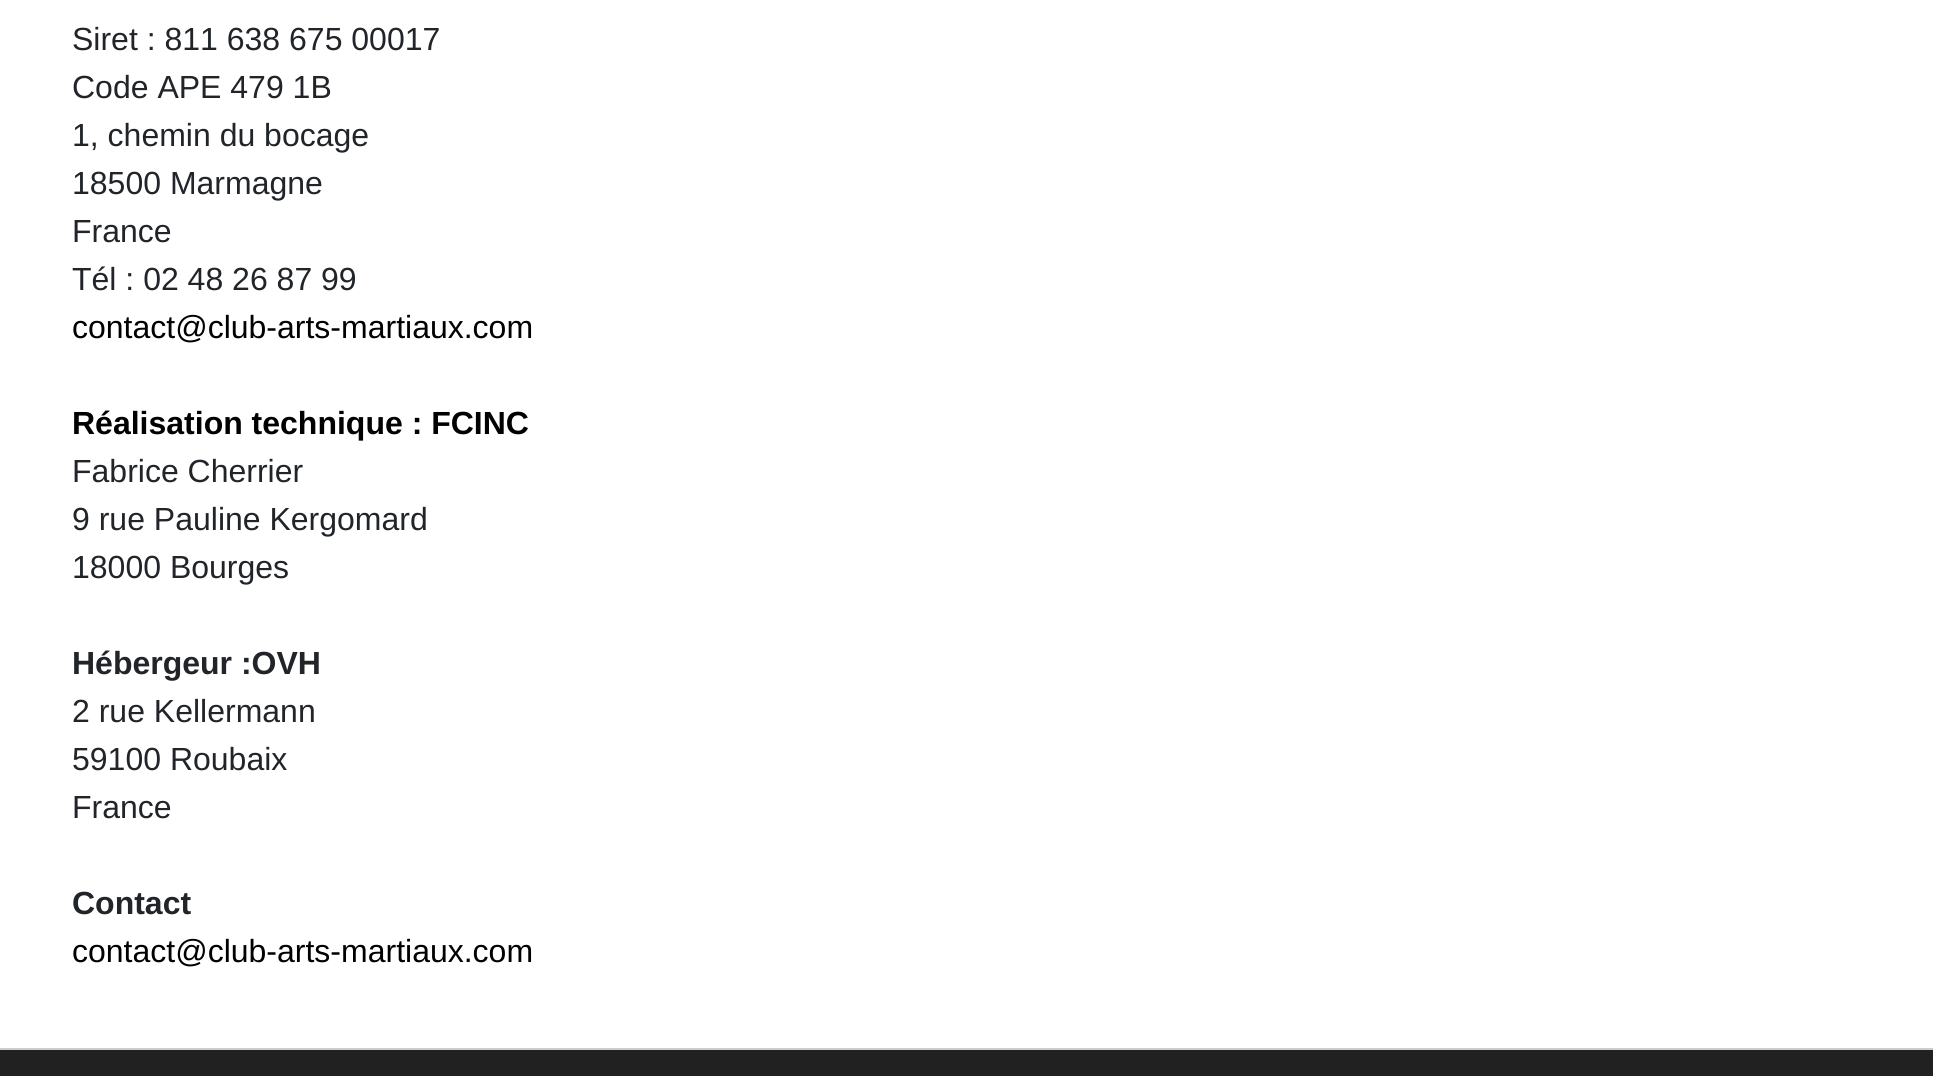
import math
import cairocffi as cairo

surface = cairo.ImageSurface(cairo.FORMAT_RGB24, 1933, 1076)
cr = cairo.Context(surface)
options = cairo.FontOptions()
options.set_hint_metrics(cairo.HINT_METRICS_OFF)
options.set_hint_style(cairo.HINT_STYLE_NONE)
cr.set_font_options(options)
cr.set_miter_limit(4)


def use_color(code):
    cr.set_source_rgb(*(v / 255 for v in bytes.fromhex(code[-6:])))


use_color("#ffffff")
cr.paint()
cr.select_font_face("Liberation Sans")
cr.set_font_size(32)
use_color("#212529")
cr.move_to(72, 50)
cr.show_text("Siret : 811 638 675 00017")
cr.move_to(72, 98)
cr.show_text("Code APE 479 1B")
cr.move_to(72, 146)
cr.show_text("1, chemin du bocage")
cr.move_to(72, 194)
cr.show_text("18500 Marmagne")
cr.move_to(72, 242)
cr.show_text("France")
cr.move_to(72, 290)
cr.show_text("Tél : 02 48 26 87 99")
use_color("#000000")
cr.move_to(72, 338)
cr.show_text("contact@club-arts-martiaux.com")
cr.select_font_face("Liberation Sans", cairo.FONT_SLANT_NORMAL, cairo.FONT_WEIGHT_BOLD)
cr.move_to(72, 434)
cr.show_text("Réalisation technique : FCINC")
cr.select_font_face("Liberation Sans")
use_color("#212529")
cr.move_to(72, 482)
cr.show_text("Fabrice Cherrier")
cr.move_to(72, 530)
cr.show_text("9 rue Pauline Kergomard")
cr.move_to(72, 578)
cr.show_text("18000 Bourges")
cr.select_font_face("Liberation Sans", cairo.FONT_SLANT_NORMAL, cairo.FONT_WEIGHT_BOLD)
cr.move_to(72, 674)
cr.show_text("Hébergeur :OVH")
cr.select_font_face("Liberation Sans")
cr.move_to(72, 722)
cr.show_text("2 rue Kellermann")
cr.move_to(72, 770)
cr.show_text("59100 Roubaix")
cr.move_to(72, 818)
cr.show_text("France")
cr.select_font_face("Liberation Sans", cairo.FONT_SLANT_NORMAL, cairo.FONT_WEIGHT_BOLD)
cr.move_to(72, 914)
cr.show_text("Contact")
cr.select_font_face("Liberation Sans")
use_color("#000000")
cr.move_to(72, 962)
cr.show_text("contact@club-arts-martiaux.com")
use_color("#222121")
cr.rectangle(0, 1050, 1933, 26)
cr.fill()
use_color("#cccccc")
cr.rectangle(0, 1048, 1933, 2)
cr.fill()
surface.write_to_png("result.png")
